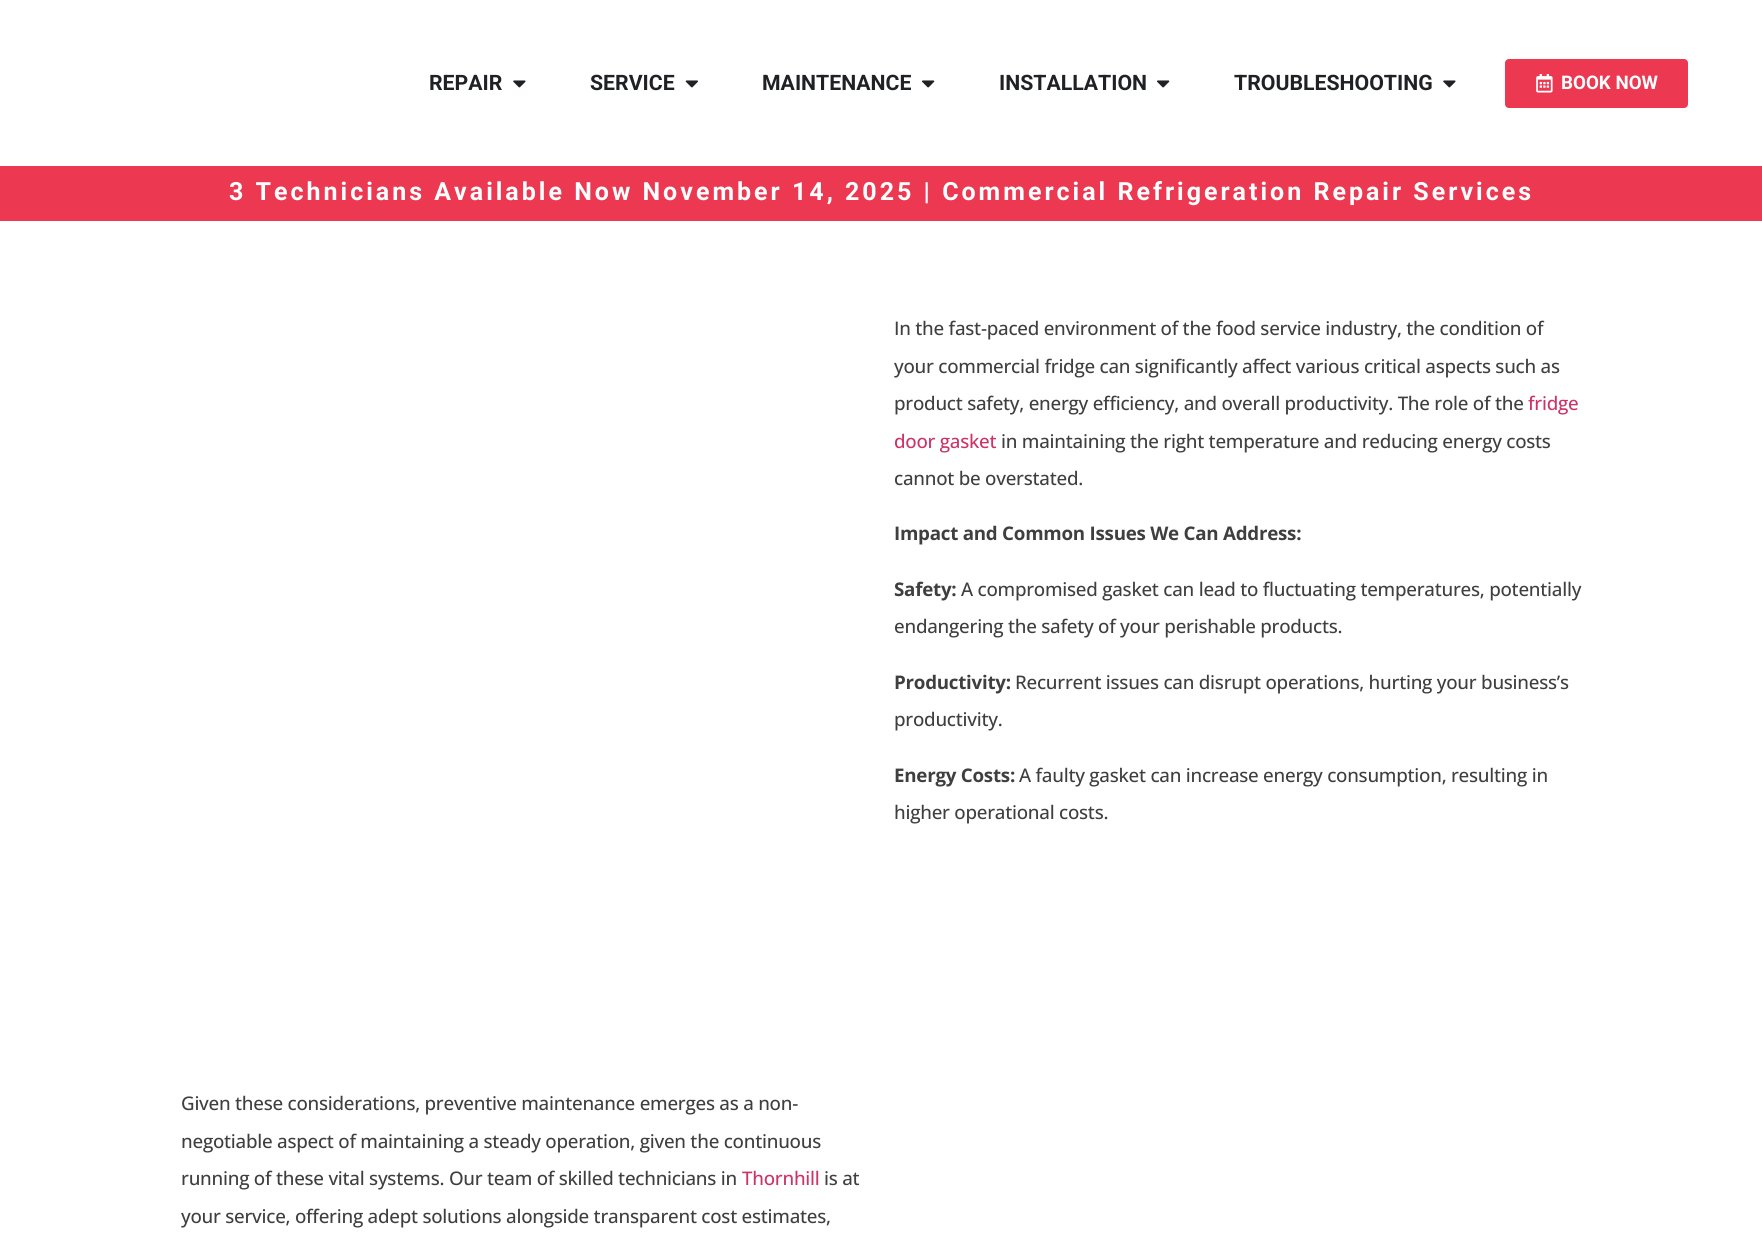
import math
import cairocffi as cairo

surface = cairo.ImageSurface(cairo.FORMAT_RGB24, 1762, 1256)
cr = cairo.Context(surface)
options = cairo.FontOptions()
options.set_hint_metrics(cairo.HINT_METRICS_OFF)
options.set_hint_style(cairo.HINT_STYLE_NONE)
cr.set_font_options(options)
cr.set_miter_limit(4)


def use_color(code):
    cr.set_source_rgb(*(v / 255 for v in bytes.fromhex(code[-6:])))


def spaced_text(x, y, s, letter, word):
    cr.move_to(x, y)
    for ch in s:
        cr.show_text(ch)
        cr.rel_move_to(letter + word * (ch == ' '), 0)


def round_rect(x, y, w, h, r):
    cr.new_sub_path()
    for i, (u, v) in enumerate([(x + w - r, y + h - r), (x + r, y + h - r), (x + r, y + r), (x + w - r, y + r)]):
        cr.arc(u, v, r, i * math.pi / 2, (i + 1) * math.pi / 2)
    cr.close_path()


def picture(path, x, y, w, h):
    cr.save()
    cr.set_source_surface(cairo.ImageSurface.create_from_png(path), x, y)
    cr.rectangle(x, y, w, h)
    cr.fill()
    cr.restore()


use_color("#ffffff")
cr.paint()
cr.select_font_face("Roboto", cairo.FONT_SLANT_NORMAL, cairo.FONT_WEIGHT_BOLD)
cr.set_font_size(21.25)
use_color("#1f2124")
cr.move_to(429, 90)
cr.show_text("REPAIR")
picture("img1.png", 513, 80, 13, 8)
cr.move_to(590, 90)
cr.show_text("SERVICE")
picture("img2.png", 685, 80, 13, 8)
cr.move_to(762, 90)
cr.show_text("MAINTENANCE")
picture("img3.png", 922, 80, 13, 8)
cr.move_to(999, 90)
cr.show_text("INSTALLATION")
picture("img3.png", 1157, 80, 13, 8)
cr.move_to(1234, 90)
cr.show_text("TROUBLESHOOTING")
picture("img1.png", 1443, 80, 13, 8)
use_color("#ec3851")
round_rect(1505, 59, 183, 49, 4)
cr.fill()
picture("img4.png", 1536, 74, 17, 19)
cr.set_font_size(18.75)
use_color("#ffffff")
cr.move_to(1561, 89)
cr.show_text("BOOK NOW")
use_color("#ec3851")
cr.rectangle(0, 166, 1762, 55)
cr.fill()
cr.set_font_size(25)
use_color("#ffffff")
spaced_text(229, 200, "3 Technicians Available Now November 14, 2025 | Commercial Refrigeration Repair Services", 3, 0)
cr.select_font_face("Open Sans Medium")
cr.set_font_size(18.75)
use_color("#3f3f3f")
spaced_text(894, 335, "In the fast-paced environment of the food service industry, the condition of", -0.25, 0)
spaced_text(894, 373, "your commercial fridge can significantly affect various critical aspects such as", -0.25, 0)
spaced_text(894, 410, "product safety, energy efficiency, and overall productivity. The role of the", -0.25, 0)
use_color("#cc3366")
spaced_text(1528, 410, "fridge", -0.25, 0)
spaced_text(894, 448, "door gasket", -0.25, 0)
use_color("#3f3f3f")
spaced_text(1001, 448, "in maintaining the right temperature and reducing energy costs", -0.25, 0)
spaced_text(894, 485, "cannot be overstated.", -0.25, 0)
cr.select_font_face("Open Sans", cairo.FONT_SLANT_NORMAL, cairo.FONT_WEIGHT_BOLD)
spaced_text(894, 540, "Impact and Common Issues We Can Address:", -0.25, 0)
spaced_text(894, 596, "Safety:", -0.25, 0)
cr.select_font_face("Open Sans Medium")
spaced_text(961, 596, "A compromised gasket can lead to fluctuating temperatures, potentially", -0.25, 0)
spaced_text(894, 633, "endangering the safety of your perishable products.", -0.25, 0)
cr.select_font_face("Open Sans", cairo.FONT_SLANT_NORMAL, cairo.FONT_WEIGHT_BOLD)
spaced_text(894, 689, "Productivity:", -0.25, 0)
cr.select_font_face("Open Sans Medium")
spaced_text(1015, 689, "Recurrent issues can disrupt operations, hurting your business’s", -0.25, 0)
spaced_text(894, 726, "productivity.", -0.25, 0)
cr.select_font_face("Open Sans", cairo.FONT_SLANT_NORMAL, cairo.FONT_WEIGHT_BOLD)
spaced_text(894, 782, "Energy Costs:", -0.25, 0)
cr.select_font_face("Open Sans Medium")
spaced_text(1019, 782, "A faulty gasket can increase energy consumption, resulting in", -0.25, 0)
spaced_text(894, 819, "higher operational costs.", -0.25, 0)
spaced_text(181, 1110, "Given these considerations, preventive maintenance emerges as a non-", -0.25, 0)
spaced_text(181, 1148, "negotiable aspect of maintaining a steady operation, given the continuous", -0.25, 0)
spaced_text(181, 1185, "running of these vital systems. Our team of skilled technicians in", -0.25, 0)
use_color("#cc3366")
spaced_text(742, 1185, "Thornhill", -0.25, 0)
use_color("#3f3f3f")
spaced_text(824, 1185, "is at", -0.25, 0)
spaced_text(181, 1223, "your service, offering adept solutions alongside transparent cost estimates,", -0.25, 0)
surface.write_to_png("result.png")
